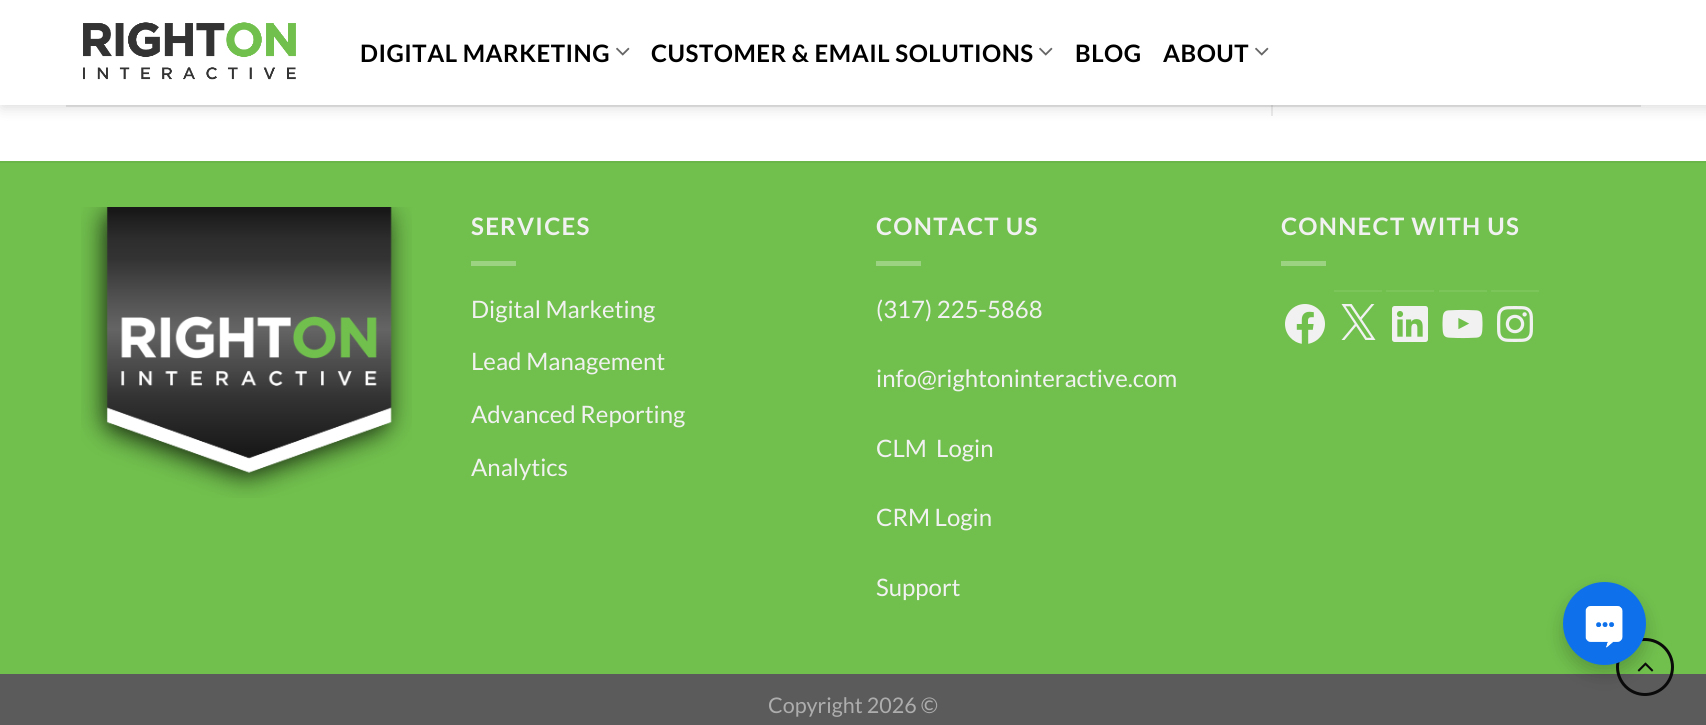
import math
import cairocffi as cairo

surface = cairo.ImageSurface(cairo.FORMAT_RGB24, 1706, 725)
cr = cairo.Context(surface)
options = cairo.FontOptions()
options.set_hint_metrics(cairo.HINT_METRICS_OFF)
options.set_hint_style(cairo.HINT_STYLE_NONE)
cr.set_font_options(options)
cr.set_miter_limit(4)


def use_color(code):
    cr.set_source_rgb(*(v / 255 for v in bytes.fromhex(code[-6:])))


def spaced_text(x, y, s, letter, word):
    cr.move_to(x, y)
    for ch in s:
        cr.show_text(ch)
        cr.rel_move_to(letter + word * (ch == ' '), 0)


def round_rect(x, y, w, h, r):
    cr.new_sub_path()
    for i, (u, v) in enumerate([(x + w - r, y + h - r), (x + r, y + h - r), (x + r, y + r), (x + w - r, y + r)]):
        cr.arc(u, v, r, i * math.pi / 2, (i + 1) * math.pi / 2)
    cr.close_path()


def shadow(x, y, w, h, r, blur, alpha):
    cr.push_group_with_content(cairo.CONTENT_ALPHA)
    cr.set_operator(cairo.OPERATOR_SOURCE)
    for i in range(15, -16, -2):
        e = blur * i / 6
        if min(w, h) + 2 * e > 0:
            cr.set_source_rgba(0, 0, 0, alpha * math.erfc((i - 1) / 8.5) / 2)
            round_rect(x - e, y - e, w + 2 * e, h + 2 * e, max(0, min(r + e + blur * .6, min(w, h) / 2 + e)))
            cr.fill()
    cr.mask(cr.pop_group())


def picture(path, x, y, w, h):
    cr.save()
    cr.set_source_surface(cairo.ImageSurface.create_from_png(path), x, y)
    cr.rectangle(x, y, w, h)
    cr.fill()
    cr.restore()


use_color("#ffffff")
cr.paint()
use_color("#ececec")
cr.rectangle(1271, 105, 2, 11)
cr.fill()
use_color("#000000")
shadow(2, 2, 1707, 105, 0, 7.5, 0.15)
use_color("#ffffff")
cr.rectangle(0, 0, 1706, 105)
cr.fill()
picture("img1.png", 83, 22, 213, 58)
cr.select_font_face("Lato", cairo.FONT_SLANT_NORMAL, cairo.FONT_WEIGHT_BOLD)
cr.set_font_size(24)
use_color("#000000")
spaced_text(360, 62, "DIGITAL MARKETING", 0.5, 0)
picture("img2.png", 616, 47, 14, 9)
spaced_text(651, 62, "CUSTOMER & EMAIL SOLUTIONS", 0.5, 0)
picture("img2.png", 1039, 47, 14, 9)
spaced_text(1075, 62, "BLOG", 0.5, 0)
spaced_text(1163, 62, "ABOUT", 0.5, 0)
picture("img2.png", 1255, 47, 14, 9)
cr.set_source_rgba(0.039, 0.039, 0.039, 0.1)
cr.rectangle(66, 105, 1575, 2)
cr.fill()
use_color("#71c04d")
cr.rectangle(0, 163, 1706, 511)
cr.fill()
use_color("#6bb649")
cr.rectangle(0, 161, 1706, 2)
cr.fill()
picture("img3.png", 81, 207, 331, 291)
use_color("#f1f1f1")
spaced_text(471, 235, "SERVICES", 1.25, 0)
use_color("#9cd382")
cr.rectangle(471, 261, 45, 5)
cr.fill()
cr.select_font_face("Lato")
use_color("#f1f1f1")
cr.move_to(471, 318)
cr.show_text("Digital Marketing")
cr.move_to(471, 370)
cr.show_text("Lead Management")
cr.move_to(471, 423)
cr.show_text("Advanced Reporting")
cr.move_to(471, 476)
cr.show_text("Analytics")
cr.select_font_face("Lato", cairo.FONT_SLANT_NORMAL, cairo.FONT_WEIGHT_BOLD)
spaced_text(876, 235, "CONTACT US", 1.25, 0)
use_color("#9cd382")
cr.rectangle(876, 261, 45, 5)
cr.fill()
cr.select_font_face("Lato")
use_color("#f1f1f1")
cr.move_to(876, 318)
cr.show_text("(317) 225-5868")
cr.move_to(876, 387)
cr.show_text("info@rightoninteractive.com")
cr.move_to(876, 457)
cr.show_text("CLM  Login")
cr.move_to(876, 526)
cr.show_text("CRM Login")
cr.move_to(876, 596)
cr.show_text("Support")
cr.select_font_face("Lato", cairo.FONT_SLANT_NORMAL, cairo.FONT_WEIGHT_BOLD)
spaced_text(1281, 235, "CONNECT WITH US", 1.25, 0)
use_color("#9cd382")
cr.rectangle(1281, 261, 45, 5)
cr.fill()
picture("img4.png", 1285, 304, 40, 40)
use_color("#7cc55b")
cr.rectangle(1334, 290, 48, 2)
cr.fill()
picture("img5.png", 1341, 304, 35, 36)
cr.rectangle(1386, 290, 48, 2)
cr.fill()
picture("img6.png", 1392, 306, 36, 36)
cr.rectangle(1439, 290, 48, 2)
cr.fill()
picture("img7.png", 1442, 309, 41, 30)
cr.rectangle(1491, 290, 48, 2)
cr.fill()
picture("img8.png", 1497, 306, 36, 36)
use_color("#5b5b5b")
cr.rectangle(0, 674, 1706, 51)
cr.fill()
cr.arc(1645, 667, 27.5, 0, 2 * math.pi)
use_color("#0a0a0a")
cr.set_line_width(3)
cr.stroke()
picture("img9.png", 1637, 662, 17, 10)
cr.select_font_face("Lato")
cr.set_font_size(21.5)
use_color("#adadad")
cr.move_to(768, 713)
cr.show_text("Copyright 2026 ©")
use_color("#000000")
shadow(1563, 591, 83, 83, 41.5, 9, 0.2)
use_color("#0e71eb")
cr.arc(1604.5, 623.5, 41.5, 0, 2 * math.pi)
cr.fill()
picture("img10.png", 1585, 606, 38, 42)
surface.write_to_png("result.png")
